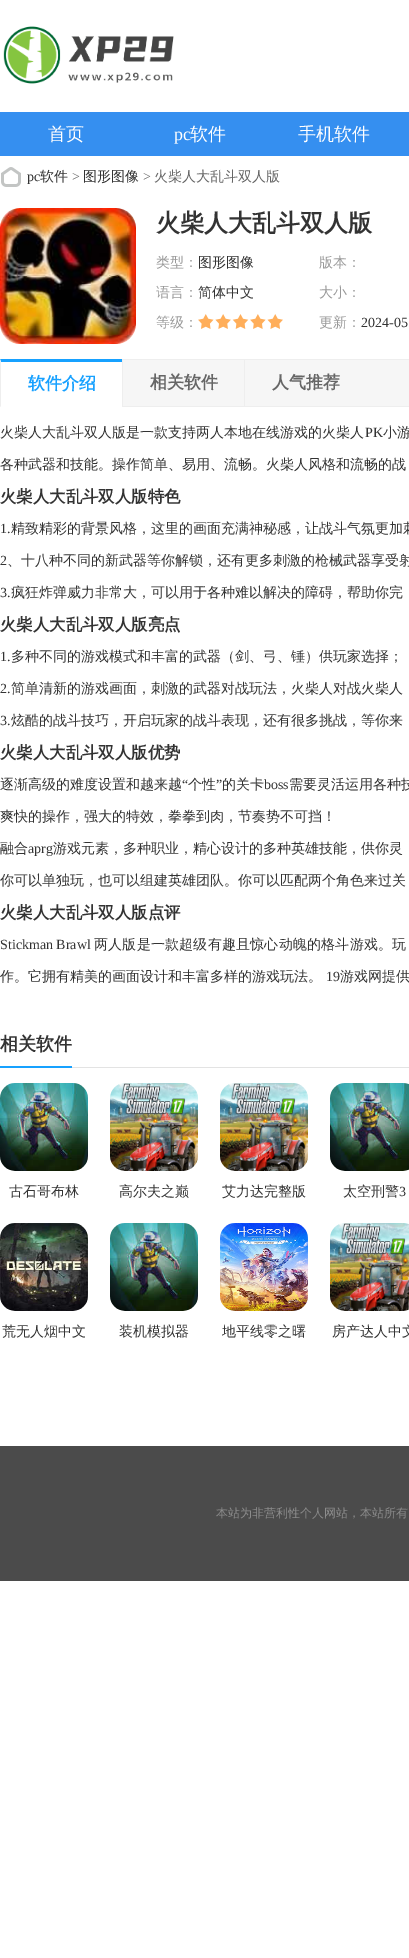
%!PS
<< /PageSize [409 1958] >> setpagedevice
/picture { 5 dict begin { /h /w /y /x /name } { exch def } forall
  gsave x y translate w h scale
  w h 8 [w 0 0 h 0 0] name (r) file false 3 colorimage grestore end } def
0 1958 translate 1 -1 scale
4 setmiterlimit
1 setgray
0 0 409 1958 rectfill
(img1.rgb) 3 26 171 58 picture
0.208 0.561 0.941 setrgbcolor
0 112 409 44 rectfill
/WenQuanYiZenHei-Medium [18 0 0 -18 0 0] selectfont
1 setgray
48 140 moveto (首页) show
/LiberationSerif-Regular [18 0 0 -18 0 0] selectfont
174 140 moveto (pc) show
/WenQuanYiZenHei-Medium [18 0 0 -18 0 0] selectfont
190 140 moveto (软件) show
298 140 moveto (手机软件) show
(img2.rgb) 1 167 20 20 picture
/LiberationSerif-Regular [14 0 0 -14 0 0] selectfont
0.2 setgray
27 181 moveto (pc) show
/WenQuanYiZenHei-Medium [14 0 0 -14 0 0] selectfont
40 181 moveto (软件) show
/LiberationSerif-Regular [14 0 0 -14 0 0] selectfont
0.4 setgray
72 181 moveto (>) show
/WenQuanYiZenHei-Medium [14 0 0 -14 0 0] selectfont
0.2 setgray
83 181 moveto (图形图像) show
/LiberationSerif-Regular [14 0 0 -14 0 0] selectfont
0.4 setgray
143 181 moveto (>) show
/WenQuanYiZenHei-Medium [14 0 0 -14 0 0] selectfont
154 181 moveto (火柴人大乱斗双人版) show
(img3.rgb) 0 208 136 136 picture
/WenQuanYiZenHei-Bold [24 0 0 -24 0 0] selectfont
0.2 setgray
156 231 moveto (火柴人大乱斗双人版) show
/WenQuanYiZenHei-Medium [14 0 0 -14 0 0] selectfont
0.6 setgray
156 267 moveto (类型：) show
0.2 setgray
198 267 moveto (图形图像) show
0.6 setgray
319 267 moveto (版本：) show
156 297 moveto (语言：) show
0.2 setgray
198 297 moveto (简体中文) show
0.6 setgray
319 297 moveto (大小：) show
156 327 moveto (等级：) show
(img4.rgb) 198 314 85 15 picture
319 327 moveto (更新：) show
/LiberationSerif-Regular [14 0 0 -14 0 0] selectfont
0.2 setgray
361 327 moveto (2024-05) show
0.965 setgray
123 360 286 46 rectfill
0.933 setgray
122 359 287 1 rectfill
122 406 287 1 rectfill
0.09 0.631 1 setrgbcolor
newpath 0 359 moveto 122 359 lineto 122 362 lineto 1 362 lineto closepath fill
0.933 setgray
newpath 0 407 moveto 0 359 lineto 1 362 lineto 1 406 lineto closepath fill
/WenQuanYiZenHei-Bold [17 0 0 -17 0 0] selectfont
0.09 0.631 1 setrgbcolor
28 389 moveto (软件介绍) show
0.933 setgray
122 360 1 46 rectfill
0.4 setgray
150 388 moveto (相关软件) show
0.933 setgray
244 360 1 46 rectfill
0.4 setgray
272 388 moveto (人气推荐) show
/WenQuanYiZenHei-Medium [14 0 0 -14 0 0] selectfont
0.2 setgray
0 437 moveto (火柴人大乱斗双人版是一款支持两人本地在线游戏的火柴人) show
/LiberationSerif-Regular [14 0 0 -14 0 0] selectfont
365 437 moveto (PK) show
/WenQuanYiZenHei-Medium [14 0 0 -14 0 0] selectfont
383 437 moveto (小游) show
0 469 moveto (各种武器和技能。操作简单、易用、流畅。火柴人风格和流畅的战) show
/WenQuanYiZenHei-Bold [16.4 0 0 -16.4 0 0] selectfont
0 502 moveto (火柴人大乱斗双人版特色) show
/LiberationSerif-Regular [14 0 0 -14 0 0] selectfont
0 533 moveto (1.) show
/WenQuanYiZenHei-Medium [14 0 0 -14 0 0] selectfont
11 533 moveto (精致精彩的背景风格，这里的画面充满神秘感，让战斗气氛更加刺) show
/LiberationSerif-Regular [14 0 0 -14 0 0] selectfont
0 565 moveto (2) show
/WenQuanYiZenHei-Medium [14 0 0 -14 0 0] selectfont
7 565 moveto (、十八种不同的新武器等你解锁，还有更多刺激的枪械武器享受射) show
/LiberationSerif-Regular [14 0 0 -14 0 0] selectfont
0 597 moveto (3.) show
/WenQuanYiZenHei-Medium [14 0 0 -14 0 0] selectfont
11 597 moveto (疯狂炸弹威力非常大，可以用于各种难以解决的障碍，帮助你完) show
/WenQuanYiZenHei-Bold [16.4 0 0 -16.4 0 0] selectfont
0 630 moveto (火柴人大乱斗双人版亮点) show
/LiberationSerif-Regular [14 0 0 -14 0 0] selectfont
0 661 moveto (1.) show
/WenQuanYiZenHei-Medium [14 0 0 -14 0 0] selectfont
11 661 moveto (多种不同的游戏模式和丰富的武器（剑、弓、锤）供玩家选择；) show
/LiberationSerif-Regular [14 0 0 -14 0 0] selectfont
0 693 moveto (2.) show
/WenQuanYiZenHei-Medium [14 0 0 -14 0 0] selectfont
11 693 moveto (简单清新的游戏画面，刺激的武器对战玩法，火柴人对战火柴人) show
/LiberationSerif-Regular [14 0 0 -14 0 0] selectfont
0 725 moveto (3.) show
/WenQuanYiZenHei-Medium [14 0 0 -14 0 0] selectfont
11 725 moveto (炫酷的战斗技巧，开启玩家的战斗表现，还有很多挑战，等你来) show
/WenQuanYiZenHei-Bold [16.4 0 0 -16.4 0 0] selectfont
0 758 moveto (火柴人大乱斗双人版优势) show
/WenQuanYiZenHei-Medium [14 0 0 -14 0 0] selectfont
0 789 moveto (逐渐高级的难度设置和越来越) show
/LiberationSerif-Regular [14 0 0 -14 0 0] selectfont
182 789 moveto (“) show
/WenQuanYiZenHei-Medium [14 0 0 -14 0 0] selectfont
188 789 moveto (个性) show
/LiberationSerif-Regular [14 0 0 -14 0 0] selectfont
216 789 moveto (”) show
/WenQuanYiZenHei-Medium [14 0 0 -14 0 0] selectfont
222 789 moveto (的关卡) show
/LiberationSerif-Regular [14 0 0 -14 0 0] selectfont
264 789 moveto (boss) show
/WenQuanYiZenHei-Medium [14 0 0 -14 0 0] selectfont
289 789 moveto (需要灵活运用各种技) show
0 821 moveto (爽快的操作，强大的特效，拳拳到肉，节奏势不可挡！) show
0 853 moveto (融合) show
/LiberationSerif-Regular [14 0 0 -14 0 0] selectfont
28 853 moveto (aprg) show
/WenQuanYiZenHei-Medium [14 0 0 -14 0 0] selectfont
53 853 moveto (游戏元素，多种职业，精心设计的多种英雄技能，供你灵) show
0 885 moveto (你可以单独玩，也可以组建英雄团队。你可以匹配两个角色来过关) show
/WenQuanYiZenHei-Bold [16.4 0 0 -16.4 0 0] selectfont
0 918 moveto (火柴人大乱斗双人版点评) show
/LiberationSerif-Regular [14 0 0 -14 0 0] selectfont
0 949 moveto (Stickman Brawl) show
/WenQuanYiZenHei-Medium [14 0 0 -14 0 0] selectfont
94 949 moveto 0.2 0 (两人版是一款超级有趣且惊心动魄的格斗游戏。玩) ashow
0 981 moveto (作。它拥有精美的画面设计和丰富多样的游戏玩法。) show
/LiberationSerif-Regular [14 0 0 -14 0 0] selectfont
326 981 moveto (19) show
/WenQuanYiZenHei-Medium [14 0 0 -14 0 0] selectfont
340 981 moveto (游戏网提供) show
0.89 setgray
72 1067 337 1 rectfill
0.09 0.631 1 setrgbcolor
0 1066 72 2 rectfill
/WenQuanYiZenHei-Bold [18 0 0 -18 0 0] selectfont
0.2 setgray
0 1050 moveto (相关软件) show
(img5.rgb) 0 1083 88 88 picture
/WenQuanYiZenHei-Medium [14 0 0 -14 0 0] selectfont
9 1196 moveto (古石哥布林) show
(img6.rgb) 110 1083 88 88 picture
119 1196 moveto (高尔夫之巅) show
(img7.rgb) 220 1083 88 88 picture
222 1196 moveto (艾力达完整版) show
(img8.rgb) 330 1083 79 88 picture
343 1196 moveto (太空刑警) show
/LiberationSerif-Regular [14 0 0 -14 0 0] selectfont
399 1196 moveto (3) show
(img9.rgb) 0 1223 88 88 picture
/WenQuanYiZenHei-Medium [14 0 0 -14 0 0] selectfont
2 1336 moveto (荒无人烟中文) show
(img10.rgb) 110 1223 88 88 picture
119 1336 moveto (装机模拟器) show
(img11.rgb) 220 1223 88 88 picture
222 1336 moveto (地平线零之曙) show
(img12.rgb) 330 1223 79 88 picture
332 1336 moveto (房产达人中文) show
0.294 setgray
0 1446 409 135 rectfill
/WenQuanYiZenHei-Medium [12 0 0 -12 0 0] selectfont
0.549 setgray
216 1517 moveto (本站为非营利性个人网站，本站所有) show
showpage
